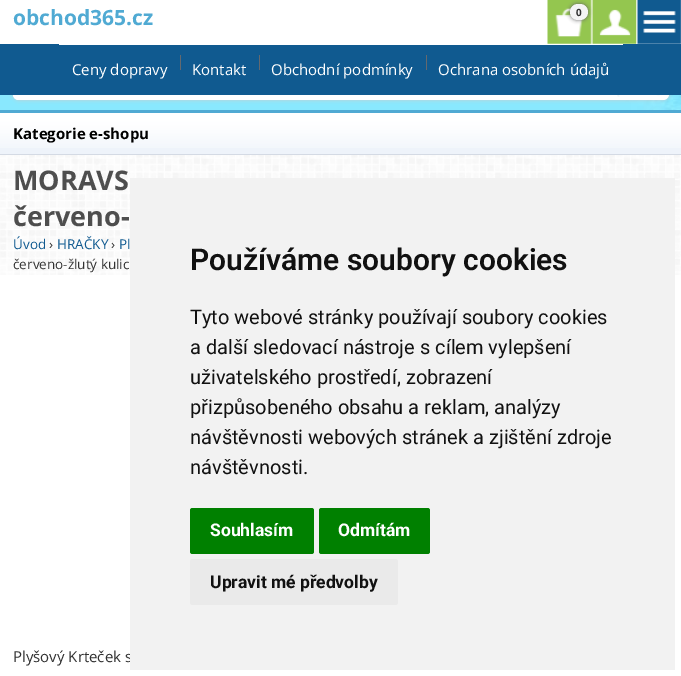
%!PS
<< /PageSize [681 676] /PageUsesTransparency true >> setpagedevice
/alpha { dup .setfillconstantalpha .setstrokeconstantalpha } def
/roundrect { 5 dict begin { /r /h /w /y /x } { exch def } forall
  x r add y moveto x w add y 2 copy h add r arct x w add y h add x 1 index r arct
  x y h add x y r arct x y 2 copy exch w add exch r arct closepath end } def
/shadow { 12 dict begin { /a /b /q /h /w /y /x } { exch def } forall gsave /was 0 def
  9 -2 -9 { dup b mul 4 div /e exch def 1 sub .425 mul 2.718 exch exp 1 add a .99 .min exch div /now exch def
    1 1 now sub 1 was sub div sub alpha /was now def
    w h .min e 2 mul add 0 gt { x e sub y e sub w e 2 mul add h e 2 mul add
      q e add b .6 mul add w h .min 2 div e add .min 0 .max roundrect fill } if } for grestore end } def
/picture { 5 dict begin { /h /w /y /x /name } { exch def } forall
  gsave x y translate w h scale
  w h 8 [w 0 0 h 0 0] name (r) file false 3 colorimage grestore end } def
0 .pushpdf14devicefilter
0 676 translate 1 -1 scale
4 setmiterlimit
1 setgray
0 0 681 676 rectfill
(img1.rgb) 0 155 681 120 picture
(img2.rgb) 0 95 681 15 picture
0.314 0.667 0.827 setrgbcolor
0 110 681 3 rectfill
/OpenSans-Bold [21 0 0 -21 0 0] selectfont
13 25 moveto (obchod365.cz) show
(img3.rgb) 547 0 45 44 picture
(img4.rgb) 592 0 45 44 picture
0.4 setgray
570 4 18 16 8 2 1 shadow
0.957 setgray
570 4 18 16 8 roundrect fill
/OpenSans-Bold [10 0 0 -10 0 0] selectfont
0.192 setgray
576 16 moveto (0) show
(img5.rgb) 637 0 44 44 picture
0.8 setgray
13 59 656 41 6 2 1 shadow
1 setgray
13 59 656 41 6 roundrect fill
newpath 19 59 moveto 538 59 lineto 538 100 lineto 19 100 lineto 15.5 100 13 97.5 13 94 curveto 13 65 lineto 13 61.5 15.5 59 19 59 curveto closepath fill
(img6.rgb) 617 95 43 2 picture
0.063 0.353 0.565 setrgbcolor
0 44 681 51 rectfill
1 setgray
59 44 564 1 rectfill
/OpenSans-Regular [15 0 0 -15 0 0] selectfont
72 75 moveto (Ceny dopravy) show
0.392 0.412 0.435 setrgbcolor
180 55 1 15 rectfill
1 setgray
192 75 moveto (Kontakt) show
0.392 0.412 0.435 setrgbcolor
259 55 1 15 rectfill
1 setgray
271 75 moveto (Obchodní podmínky) show
0.392 0.412 0.435 setrgbcolor
426 55 1 15 rectfill
1 setgray
438 75 moveto (Ochrana osobních údajů) show
0.933 0.953 0.98 setrgbcolor
0 148 681 6 rectfill
(img7.rgb) 0 113 681 35 picture
0.831 0.855 0.894 setrgbcolor
0 154 681 1 rectfill
/OpenSans-Bold [15 0 0 -15 0 0] selectfont
0 setgray
13 139 moveto (Kategorie e-shopu) show
/OpenSans-Bold [27 0 0 -27 0 0] selectfont
0.306 setgray
13 190 moveto (MORAVS) show
13 226 moveto (červeno-) show
/OpenSans-Regular [13.5 0 0 -13.5 0 0] selectfont
0.063 0.353 0.565 setrgbcolor
13 249 moveto (Úvod) show
0.192 setgray
49 249 moveto (›) show
0.063 0.353 0.565 setrgbcolor
57 249 moveto (HRAČKY) show
0.192 setgray
111 249 moveto (›) show
0.063 0.353 0.565 setrgbcolor
119 249 moveto (Pl) show
0.192 setgray
13 269 moveto (červeno-žlutý kulic) show
/OpenSans-Regular [15 0 0 -15 0 0] selectfont
13 662 moveto (Plyšový Krteček s) show
0.949 setgray
130 178 545 492 rectfill
/Roboto-SemiBold [30 0 0 -30 0 0] selectfont
0.067 setgray
190 270 moveto (Používáme soubory cookies) show
/Roboto-Regular [20 0 0 -20 0 0] selectfont
190 324 moveto (Tyto webové stránky používají soubory cookies) show
190 354 moveto (a další sledovací nástroje s cílem vylepšení) show
190 384 moveto (uživatelského prostředí, zobrazení) show
190 414 moveto (přizpůsobeného obsahu a reklam, analýzy) show
190 444 moveto (návštěvnosti webových stránek a zjištění zdroje) show
190 474 moveto (návštěvnosti.) show
0 0.502 0 setrgbcolor
190 508 124 46 2.5 roundrect fill
/Roboto-Bold [17.5 0 0 -17.5 0 0] selectfont
1 setgray
210 536 moveto (Souhlasím) show
0 0.502 0 setrgbcolor
319 508 111 46 2.5 roundrect fill
1 setgray
338 536 moveto (Odmítám) show
0.918 setgray
190 559 208 46 2.5 roundrect fill
0.067 setgray
210 588 moveto (Upravit mé předvolby) show
.poppdf14devicefilter showpage
